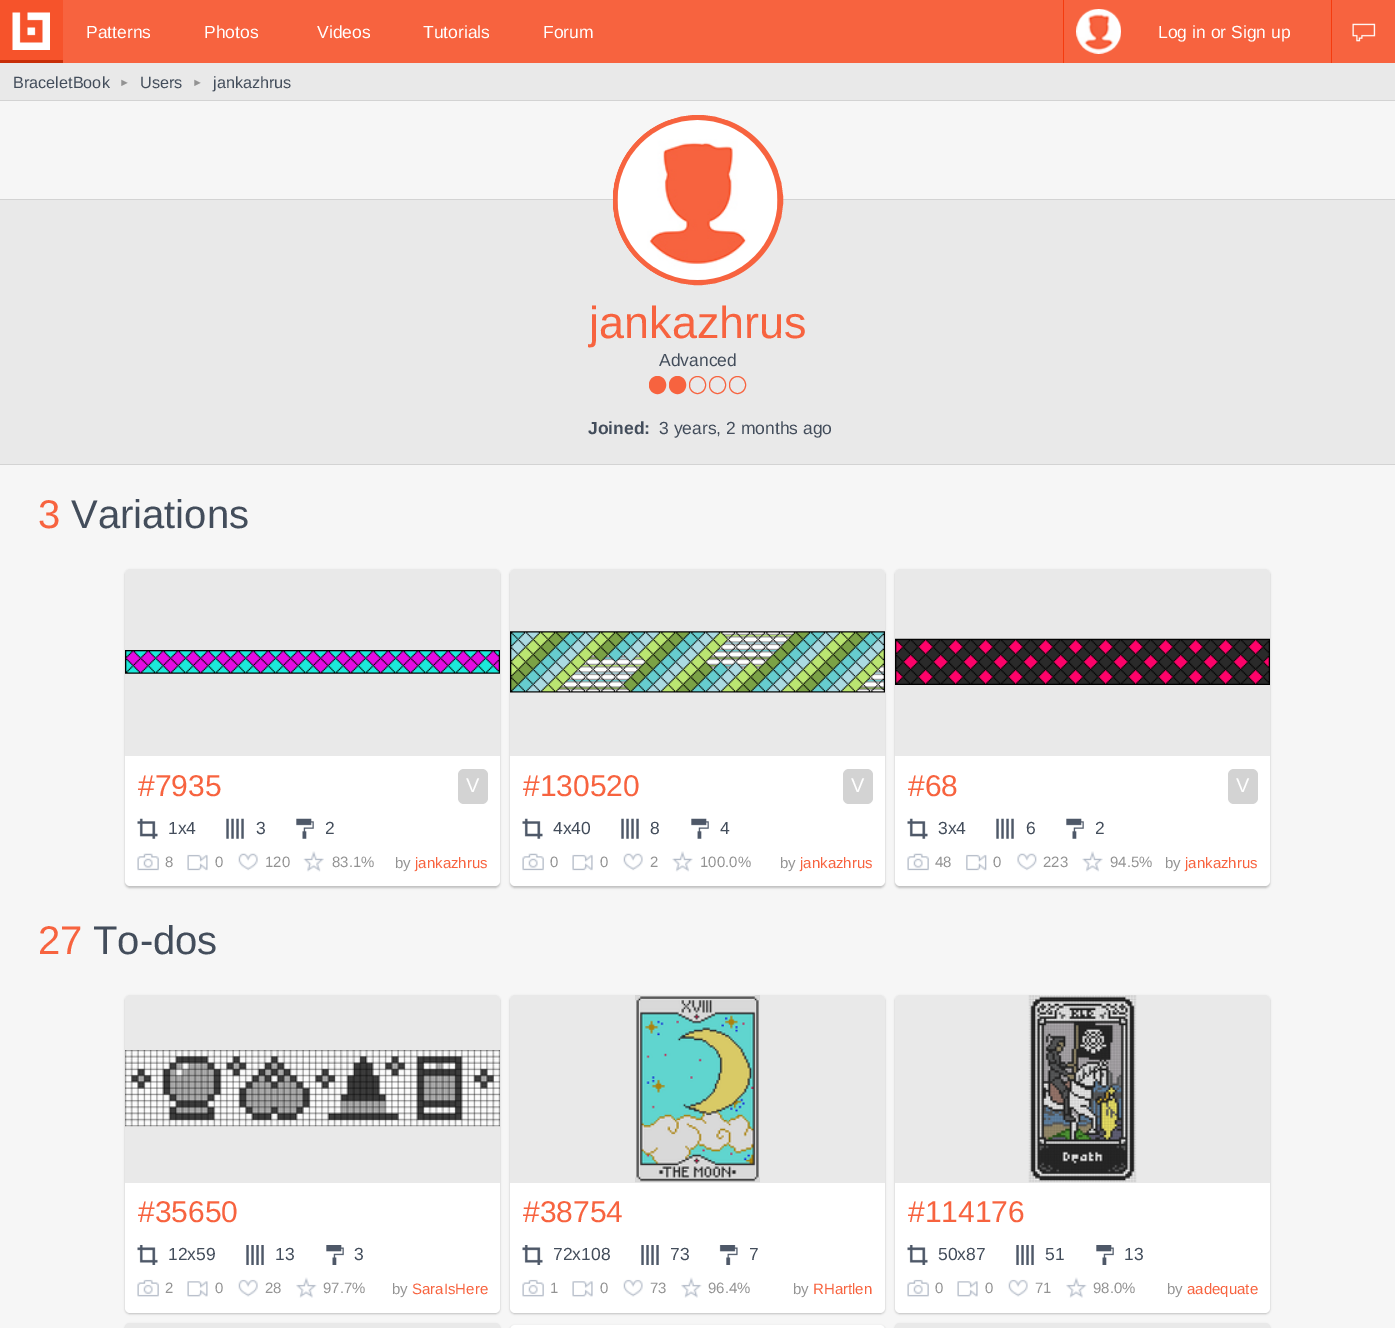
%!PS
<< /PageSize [1395 1328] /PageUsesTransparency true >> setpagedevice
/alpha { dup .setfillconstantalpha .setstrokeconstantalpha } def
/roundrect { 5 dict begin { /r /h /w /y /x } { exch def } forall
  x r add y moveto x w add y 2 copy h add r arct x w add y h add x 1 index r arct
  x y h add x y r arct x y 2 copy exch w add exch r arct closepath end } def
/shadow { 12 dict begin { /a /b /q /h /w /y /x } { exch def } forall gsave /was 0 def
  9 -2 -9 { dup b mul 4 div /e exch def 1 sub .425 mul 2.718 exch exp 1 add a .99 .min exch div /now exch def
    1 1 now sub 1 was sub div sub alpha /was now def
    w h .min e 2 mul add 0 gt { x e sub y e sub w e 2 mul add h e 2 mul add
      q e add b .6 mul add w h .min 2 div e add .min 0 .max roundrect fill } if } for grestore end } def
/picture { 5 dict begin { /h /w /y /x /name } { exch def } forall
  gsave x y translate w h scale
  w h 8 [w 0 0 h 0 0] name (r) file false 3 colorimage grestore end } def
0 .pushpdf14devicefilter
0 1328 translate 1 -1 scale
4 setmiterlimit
0.965 setgray
0 0 1395 1328 rectfill
0.969 0.388 0.247 setrgbcolor
63 0 1332 63 rectfill
0.965 0.325 0.169 setrgbcolor
0 0 63 60 rectfill
0.784 0.18 0.031 setrgbcolor
0 60 63 3 rectfill
(img1.rgb) 12 12 38 38 picture
/LiberationSans-Regular [17.5 0 0 -17.5 0 0] selectfont
1 setgray
86 38 moveto (Patterns) show
204 38 moveto (Photos) show
317 38 moveto (Videos) show
423 38 moveto (Tutorials) show
543 38 moveto (Forum) show
0.961 0.231 0.055 setrgbcolor
1331 0 1 63 rectfill
1063 0 1 63 rectfill
(img2.rgb) 1076 9 45 45 picture
1 setgray
1158 38 moveto (Log in or Sign up) show
(img3.rgb) 1352 23 24 19 picture
0.914 setgray
0 63 1395 37 rectfill
0.827 setgray
0 100 1395 1 rectfill
/LiberationSans-Regular [16.25 0 0 -16.25 0 0] selectfont
0.263 0.302 0.357 setrgbcolor
13 88 moveto (BraceletBook) show
/LiberationSans-Regular [11 0 0 -11 0 0] selectfont
0.576 setgray
119 86 moveto (►) show
/LiberationSans-Regular [16.25 0 0 -16.25 0 0] selectfont
0.263 0.302 0.357 setrgbcolor
140 88 moveto (Users) show
/LiberationSans-Regular [11 0 0 -11 0 0] selectfont
0.576 setgray
192 86 moveto (►) show
/LiberationSans-Regular [16.25 0 0 -16.25 0 0] selectfont
0.263 0.302 0.357 setrgbcolor
213 88 moveto (jankazhrus) show
0.914 setgray
0 200 1395 264 rectfill
0.827 setgray
0 199 1395 1 rectfill
0 464 1395 1 rectfill
(img4.rgb) 612 115 171 170 picture
0.969 0.388 0.247 setrgbcolor
5 setlinewidth
newpath 698 200 82.5 0 360 arc closepath stroke
(img5.rgb) 617 120 161 160 picture
/LiberationSans-Regular [45 0 0 -45 0 0] selectfont
589 338 moveto (jankazhrus) show
/LiberationSans-Regular [17.5 0 0 -17.5 0 0] selectfont
0.263 0.302 0.357 setrgbcolor
659 366 moveto (Advanced) show
0.969 0.388 0.247 setrgbcolor
649.5 376.5 16 17 8 roundrect gsave fill grestore
1 setlinewidth
stroke
669.5 376.5 16 17 8 roundrect gsave fill grestore
stroke
689.5 376.5 16 17 8 roundrect stroke
709.5 376.5 16 17 8 roundrect stroke
729.5 376.5 16 17 8 roundrect stroke
/LiberationSans-Bold [17.5 0 0 -17.5 0 0] selectfont
0.263 0.302 0.357 setrgbcolor
588 434 moveto (Joined:) show
/LiberationSans-Regular [17.5 0 0 -17.5 0 0] selectfont
659 434 moveto (3 years, 2 months ago) show
/LiberationSans-Regular [40 0 0 -40 0 0] selectfont
0.969 0.388 0.247 setrgbcolor
38 528 moveto (3) show
0.263 0.302 0.357 setrgbcolor
71 528 moveto (Variations) show
0 setgray
125 570 375 318 5 1 0.22 shadow
1 setgray
125 569 375 317 5 roundrect fill
0.914 setgray
newpath 130 569 moveto 495 569 lineto 498 569 500 571 500 574 curveto 500 756 lineto 125 756 lineto 125 574 lineto 125 571 127 569 130 569 curveto closepath fill
(img6.rgb) 125 650 375 24 picture
/LiberationSans-Regular [30 0 0 -30 0 0] selectfont
0.969 0.388 0.247 setrgbcolor
138 796 moveto (#7935) show
0.827 setgray
458 769 30 35 6 roundrect fill
/LiberationSans-Regular [20 0 0 -20 0 0] selectfont
1 setgray
466 792 moveto (V) show
(img7.rgb) 137 818 21 21 picture
/LiberationSans-Regular [17.5 0 0 -17.5 0 0] selectfont
0.263 0.302 0.357 setrgbcolor
168 834 moveto (1x4) show
(img8.rgb) 226 818 18 21 picture
256 834 moveto (3) show
(img9.rgb) 296 818 18 21 picture
325 834 moveto (2) show
(img10.rgb) 137 853 22 18 picture
/LiberationSans-Regular [15 0 0 -15 0 0] selectfont
0.576 setgray
165 867 moveto (8) show
(img11.rgb) 187 854 21 17 picture
215 867 moveto (0) show
(img12.rgb) 238 853 20 18 picture
265 867 moveto (120) show
(img13.rgb) 303 851 21 21 picture
332 867 moveto (83.1%) show
395 868 moveto (by) show
0.969 0.388 0.247 setrgbcolor
415 868 moveto (jankazhrus) show
0 setgray
510 570 375 318 5 1 0.22 shadow
1 setgray
510 569 375 317 5 roundrect fill
0.914 setgray
newpath 515 569 moveto 880 569 lineto 883 569 885 571 885 574 curveto 885 756 lineto 510 756 lineto 510 574 lineto 510 571 512 569 515 569 curveto closepath fill
(img14.rgb) 510 631 375 62 picture
/LiberationSans-Regular [30 0 0 -30 0 0] selectfont
0.969 0.388 0.247 setrgbcolor
523 796 moveto (#130520) show
0.827 setgray
843 769 30 35 6 roundrect fill
/LiberationSans-Regular [20 0 0 -20 0 0] selectfont
1 setgray
851 792 moveto (V) show
(img7.rgb) 522 818 21 21 picture
/LiberationSans-Regular [17.5 0 0 -17.5 0 0] selectfont
0.263 0.302 0.357 setrgbcolor
553 834 moveto (4x40) show
(img8.rgb) 621 818 18 21 picture
650 834 moveto (8) show
(img15.rgb) 691 818 18 21 picture
720 834 moveto (4) show
(img10.rgb) 522 853 22 18 picture
/LiberationSans-Regular [15 0 0 -15 0 0] selectfont
0.576 setgray
550 867 moveto (0) show
(img16.rgb) 572 854 21 17 picture
600 867 moveto (0) show
(img17.rgb) 623 853 20 18 picture
650 867 moveto (2) show
(img18.rgb) 672 851 21 21 picture
700 867 moveto (100.0%) show
780 868 moveto (by) show
0.969 0.388 0.247 setrgbcolor
800 868 moveto (jankazhrus) show
0 setgray
895 570 375 318 5 1 0.22 shadow
1 setgray
895 569 375 317 5 roundrect fill
0.914 setgray
newpath 900 569 moveto 1265 569 lineto 1268 569 1270 571 1270 574 curveto 1270 756 lineto 895 756 lineto 895 574 lineto 895 571 897 569 900 569 curveto closepath fill
(img19.rgb) 895 638 375 47 picture
/LiberationSans-Regular [30 0 0 -30 0 0] selectfont
0.969 0.388 0.247 setrgbcolor
908 796 moveto (#68) show
0.827 setgray
1228 769 30 35 6 roundrect fill
/LiberationSans-Regular [20 0 0 -20 0 0] selectfont
1 setgray
1236 792 moveto (V) show
(img7.rgb) 907 818 21 21 picture
/LiberationSans-Regular [17.5 0 0 -17.5 0 0] selectfont
0.263 0.302 0.357 setrgbcolor
938 834 moveto (3x4) show
(img8.rgb) 996 818 18 21 picture
1026 834 moveto (6) show
(img9.rgb) 1066 818 18 21 picture
1095 834 moveto (2) show
(img10.rgb) 907 853 22 18 picture
/LiberationSans-Regular [15 0 0 -15 0 0] selectfont
0.576 setgray
935 867 moveto (48) show
(img20.rgb) 966 854 21 17 picture
993 867 moveto (0) show
(img21.rgb) 1017 853 20 18 picture
1043 867 moveto (223) show
(img22.rgb) 1082 851 21 21 picture
1110 867 moveto (94.5%) show
1165 868 moveto (by) show
0.969 0.388 0.247 setrgbcolor
1185 868 moveto (jankazhrus) show
/LiberationSans-Regular [40 0 0 -40 0 0] selectfont
38 954 moveto (27) show
0.263 0.302 0.357 setrgbcolor
93 954 moveto (To-dos) show
0 setgray
125 996 375 318 5 1 0.22 shadow
1 setgray
125 995 375 318 5 roundrect fill
0.914 setgray
newpath 130 995 moveto 495 995 lineto 498 995 500 997 500 1000 curveto 500 1183 lineto 125 1183 lineto 125 1000 lineto 125 997 127 995 130 995 curveto closepath fill
(img23.rgb) 125 1050 375 77 picture
/LiberationSans-Regular [30 0 0 -30 0 0] selectfont
0.969 0.388 0.247 setrgbcolor
138 1222 moveto (#35650) show
(img24.rgb) 137 1245 21 20 picture
/LiberationSans-Regular [17.5 0 0 -17.5 0 0] selectfont
0.263 0.302 0.357 setrgbcolor
168 1260 moveto (12x59) show
(img25.rgb) 246 1245 18 20 picture
275 1260 moveto (13) show
(img26.rgb) 326 1245 18 20 picture
354 1260 moveto (3) show
(img27.rgb) 137 1279 22 18 picture
/LiberationSans-Regular [15 0 0 -15 0 0] selectfont
0.576 setgray
165 1293 moveto (2) show
(img28.rgb) 187 1281 21 16 picture
215 1293 moveto (0) show
(img29.rgb) 238 1279 20 18 picture
265 1293 moveto (28) show
(img30.rgb) 296 1277 21 21 picture
323 1293 moveto (97.7%) show
392 1294 moveto (by) show
0.969 0.388 0.247 setrgbcolor
412 1294 moveto (SaraIsHere) show
0 setgray
510 996 375 318 5 1 0.22 shadow
1 setgray
510 995 375 318 5 roundrect fill
0.914 setgray
newpath 515 995 moveto 880 995 lineto 883 995 885 997 885 1000 curveto 885 1183 lineto 510 1183 lineto 510 1000 lineto 510 997 512 995 515 995 curveto closepath fill
(img31.rgb) 635 995 125 188 picture
/LiberationSans-Regular [30 0 0 -30 0 0] selectfont
0.969 0.388 0.247 setrgbcolor
523 1222 moveto (#38754) show
(img24.rgb) 522 1245 21 20 picture
/LiberationSans-Regular [17.5 0 0 -17.5 0 0] selectfont
0.263 0.302 0.357 setrgbcolor
553 1260 moveto (72x108) show
(img25.rgb) 641 1245 18 20 picture
670 1260 moveto (73) show
(img32.rgb) 719 1245 19 20 picture
749 1260 moveto (7) show
(img27.rgb) 522 1279 22 18 picture
/LiberationSans-Regular [15 0 0 -15 0 0] selectfont
0.576 setgray
550 1293 moveto (1) show
(img33.rgb) 572 1281 21 16 picture
600 1293 moveto (0) show
(img34.rgb) 623 1279 20 18 picture
650 1293 moveto (73) show
(img30.rgb) 681 1277 21 21 picture
708 1293 moveto (96.4%) show
793 1294 moveto (by) show
0.969 0.388 0.247 setrgbcolor
813 1294 moveto (RHartlen) show
0 setgray
895 996 375 318 5 1 0.22 shadow
1 setgray
895 995 375 318 5 roundrect fill
0.914 setgray
newpath 900 995 moveto 1265 995 lineto 1268 995 1270 997 1270 1000 curveto 1270 1183 lineto 895 1183 lineto 895 1000 lineto 895 997 897 995 900 995 curveto closepath fill
(img35.rgb) 1028 995 109 188 picture
/LiberationSans-Regular [30 0 0 -30 0 0] selectfont
0.969 0.388 0.247 setrgbcolor
908 1222 moveto (#114176) show
(img24.rgb) 907 1245 21 20 picture
/LiberationSans-Regular [17.5 0 0 -17.5 0 0] selectfont
0.263 0.302 0.357 setrgbcolor
938 1260 moveto (50x87) show
(img25.rgb) 1016 1245 18 20 picture
1045 1260 moveto (51) show
(img26.rgb) 1096 1245 18 20 picture
1124 1260 moveto (13) show
(img27.rgb) 907 1279 22 18 picture
/LiberationSans-Regular [15 0 0 -15 0 0] selectfont
0.576 setgray
935 1293 moveto (0) show
(img33.rgb) 957 1281 21 16 picture
985 1293 moveto (0) show
(img36.rgb) 1008 1279 20 18 picture
1035 1293 moveto (71) show
(img30.rgb) 1066 1277 21 21 picture
1093 1293 moveto (98.0%) show
1167 1294 moveto (by) show
0.969 0.388 0.247 setrgbcolor
1187 1294 moveto (aadequate) show
0 setgray
125 1324 375 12 5 1 0.22 shadow
0.914 setgray
newpath 130 1323 moveto 495 1323 lineto 498 1323 500 1325 500 1328 curveto 500 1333 lineto 125 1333 lineto 125 1328 lineto 125 1325 127 1323 130 1323 curveto closepath fill
0 setgray
510 1326 375 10 5 1 0.22 shadow
1 setgray
510 1325 375 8 5 roundrect fill
0 setgray
895 1324 375 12 5 1 0.22 shadow
0.914 setgray
newpath 900 1323 moveto 1265 1323 lineto 1268 1323 1270 1325 1270 1328 curveto 1270 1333 lineto 895 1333 lineto 895 1328 lineto 895 1325 897 1323 900 1323 curveto closepath fill
.poppdf14devicefilter showpage
